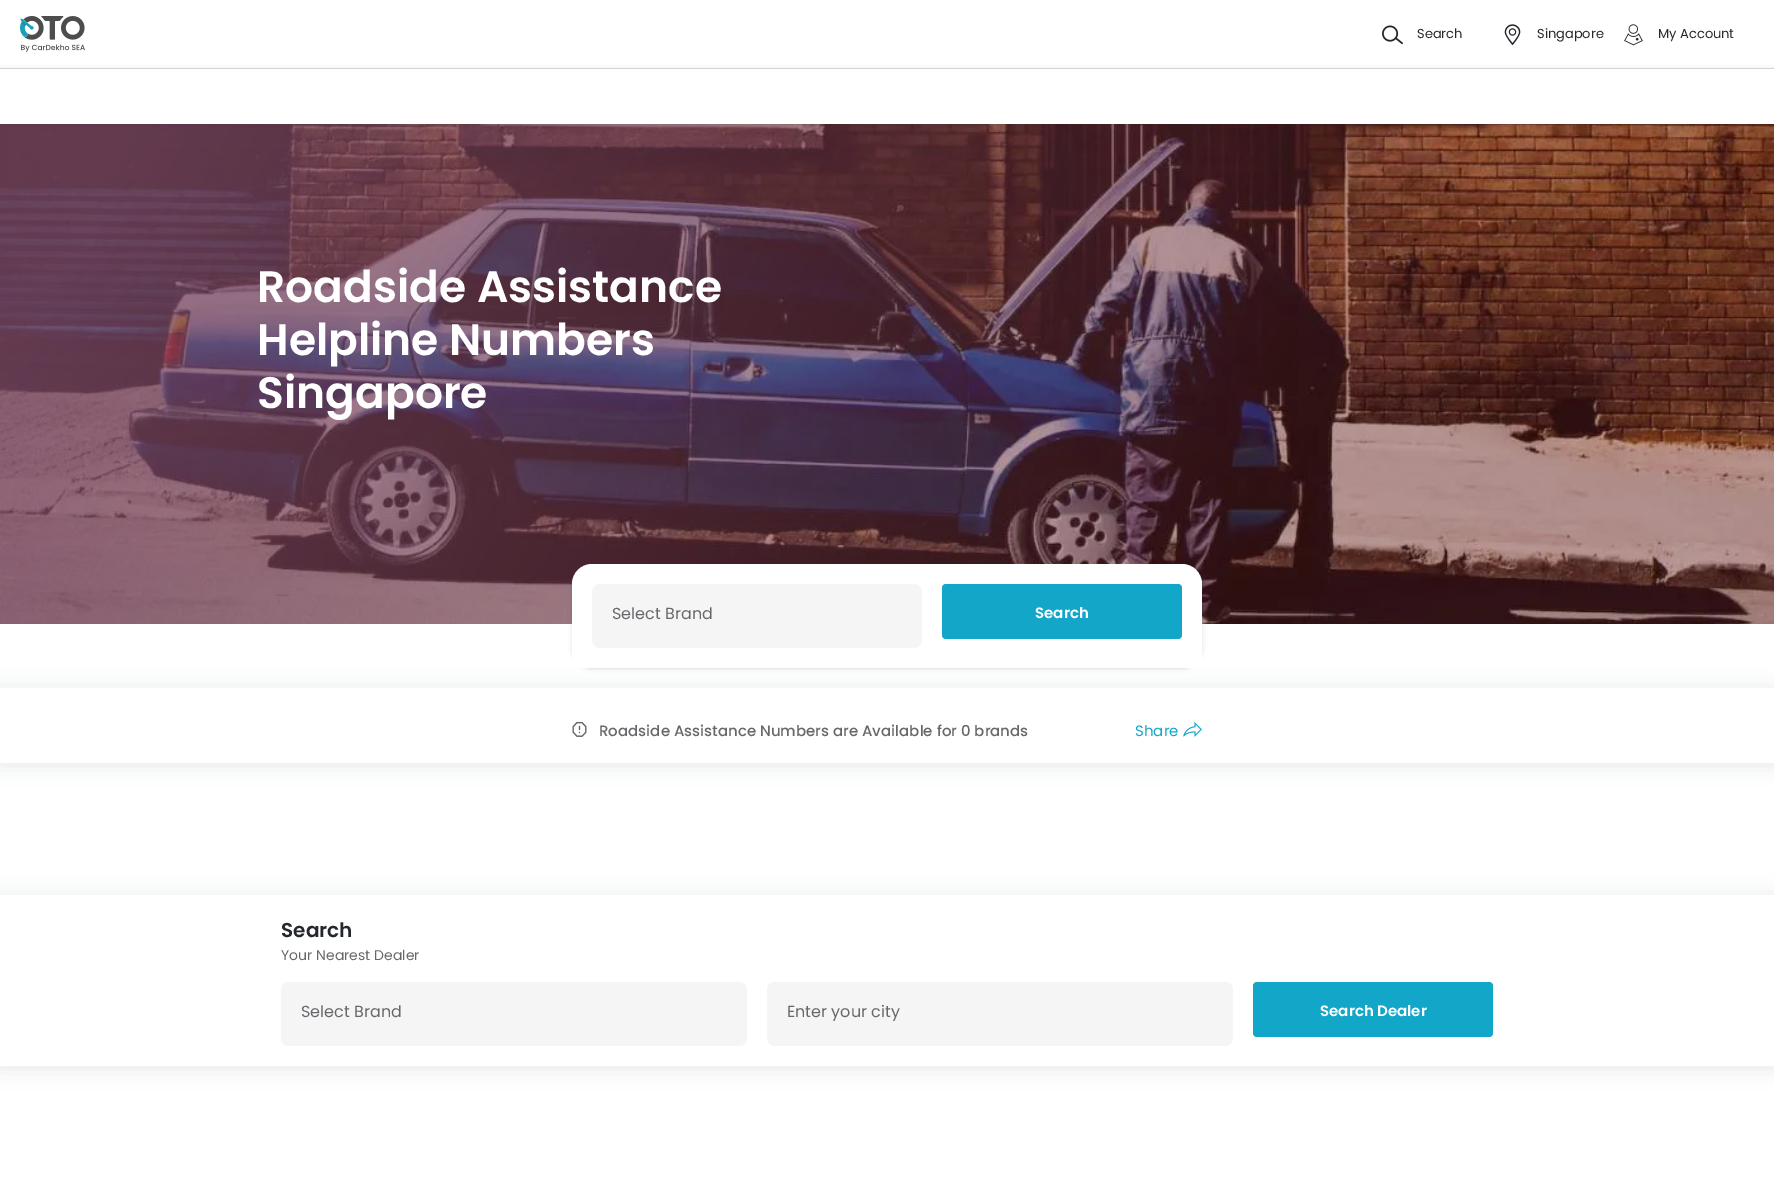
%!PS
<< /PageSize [1774 1195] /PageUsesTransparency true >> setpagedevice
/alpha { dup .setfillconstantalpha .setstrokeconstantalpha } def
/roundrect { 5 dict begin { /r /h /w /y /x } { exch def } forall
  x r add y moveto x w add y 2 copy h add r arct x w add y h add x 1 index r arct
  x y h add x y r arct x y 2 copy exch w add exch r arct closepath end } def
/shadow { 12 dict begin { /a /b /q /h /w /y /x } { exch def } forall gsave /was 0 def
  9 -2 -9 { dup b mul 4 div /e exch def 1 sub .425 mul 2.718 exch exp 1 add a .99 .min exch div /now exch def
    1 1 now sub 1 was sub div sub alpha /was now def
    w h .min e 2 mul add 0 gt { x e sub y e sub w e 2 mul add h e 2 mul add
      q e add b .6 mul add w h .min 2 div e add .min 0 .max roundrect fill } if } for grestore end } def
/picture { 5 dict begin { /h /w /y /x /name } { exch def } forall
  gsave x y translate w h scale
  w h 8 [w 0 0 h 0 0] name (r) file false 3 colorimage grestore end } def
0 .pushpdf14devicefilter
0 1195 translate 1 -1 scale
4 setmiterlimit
1 setgray
0 0 1774 1195 rectfill
(img1.rgb) 20 16 65 37 picture
(img2.rgb) 1382 25 21 20 picture
/Poppins-Regular [13 0 0 -13 0 0] selectfont
0.141 0.153 0.173 setrgbcolor
1417 38 moveto (Search) show
(img3.rgb) 1504 24 17 21 picture
1537 38 moveto (Singapore) show
(img4.rgb) 1624 24 19 22 picture
1658 38 moveto (My Account) show
(img5.rgb) 0 124 1774 500 picture
gsave
newpath 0 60 moveto 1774 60 lineto 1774 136 lineto 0 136 lineto closepath 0 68 moveto 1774 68 lineto 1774 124 lineto 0 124 lineto closepath eoclip newpath
0 70 1774 56 0 3 0.15 shadow
grestore
0.827 0.831 0.835 setrgbcolor
0 68 1774 1 rectfill
/Poppins-SemiBold [44 0 0 -44 0 0] selectfont
1 setgray
257 302 moveto (Roadside Assistance) show
257 355 moveto (Helpline Numbers) show
257 408 moveto (Singapore) show
0.157 0.2 0.247 setrgbcolor
572 565 630 104 20 2 0.16 shadow
gsave
newpath 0 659 moveto 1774 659 lineto 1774 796 lineto 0 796 lineto closepath 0 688 moveto 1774 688 lineto 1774 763 lineto 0 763 lineto closepath eoclip newpath
0 690 1774 75 0 10 0.12 shadow
grestore
1 setgray
newpath 592 564 moveto 1182 564 lineto 1193 564 1202 573 1202 584 curveto 1202 668 lineto 572 668 lineto 572 584 lineto 572 573 581 564 592 564 curveto closepath fill
0.961 0.961 0.965 setrgbcolor
592 584 330 64 8 roundrect fill
/Poppins-Regular [16 0 0 -16 0 0] selectfont
0.4 0.408 0.42 setrgbcolor
612 619 moveto (Select Brand) show
0.071 0.655 0.784 setrgbcolor
942 584 240 55 4 roundrect fill
/Poppins-SemiBold [15 0 0 -15 0 0] selectfont
1 setgray
1035 618 moveto (Search) show
(img6.rgb) 572 721 15 16 picture
/Poppins-Medium [15 0 0 -15 0 0] selectfont
0.4 0.408 0.42 setrgbcolor
599 736 moveto (Roadside Assistance Numbers are Available for 0 brands) show
/Poppins-Regular [15 0 0 -15 0 0] selectfont
0.071 0.655 0.784 setrgbcolor
1135 736 moveto (Share) show
(img7.rgb) 1183 722 19 15 picture
gsave
newpath 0 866 moveto 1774 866 lineto 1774 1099 lineto 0 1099 lineto closepath 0 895 moveto 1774 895 lineto 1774 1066 lineto 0 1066 lineto closepath eoclip newpath
0.157 0.2 0.247 setrgbcolor
0 897 1774 171 0 10 0.12 shadow
grestore
/Poppins-SemiBold [20 0 0 -20 0 0] selectfont
0.141 0.153 0.173 setrgbcolor
281 937 moveto (Search) show
/Poppins-Regular [14 0 0 -14 0 0] selectfont
0.4 0.408 0.42 setrgbcolor
281 960 moveto (Your Nearest Dealer) show
0.961 0.961 0.965 setrgbcolor
281 982 466 64 8 roundrect fill
/Poppins-Regular [16 0 0 -16 0 0] selectfont
0.4 0.408 0.42 setrgbcolor
301 1017 moveto (Select Brand) show
0.961 0.961 0.965 setrgbcolor
767 982 466 64 8 roundrect fill
0.4 0.408 0.42 setrgbcolor
787 1017 moveto (Enter your city) show
0.071 0.655 0.784 setrgbcolor
1253 982 240 55 4 roundrect fill
/Poppins-SemiBold [15 0 0 -15 0 0] selectfont
1 setgray
1320 1016 moveto (Search Dealer) show
.poppdf14devicefilter showpage
